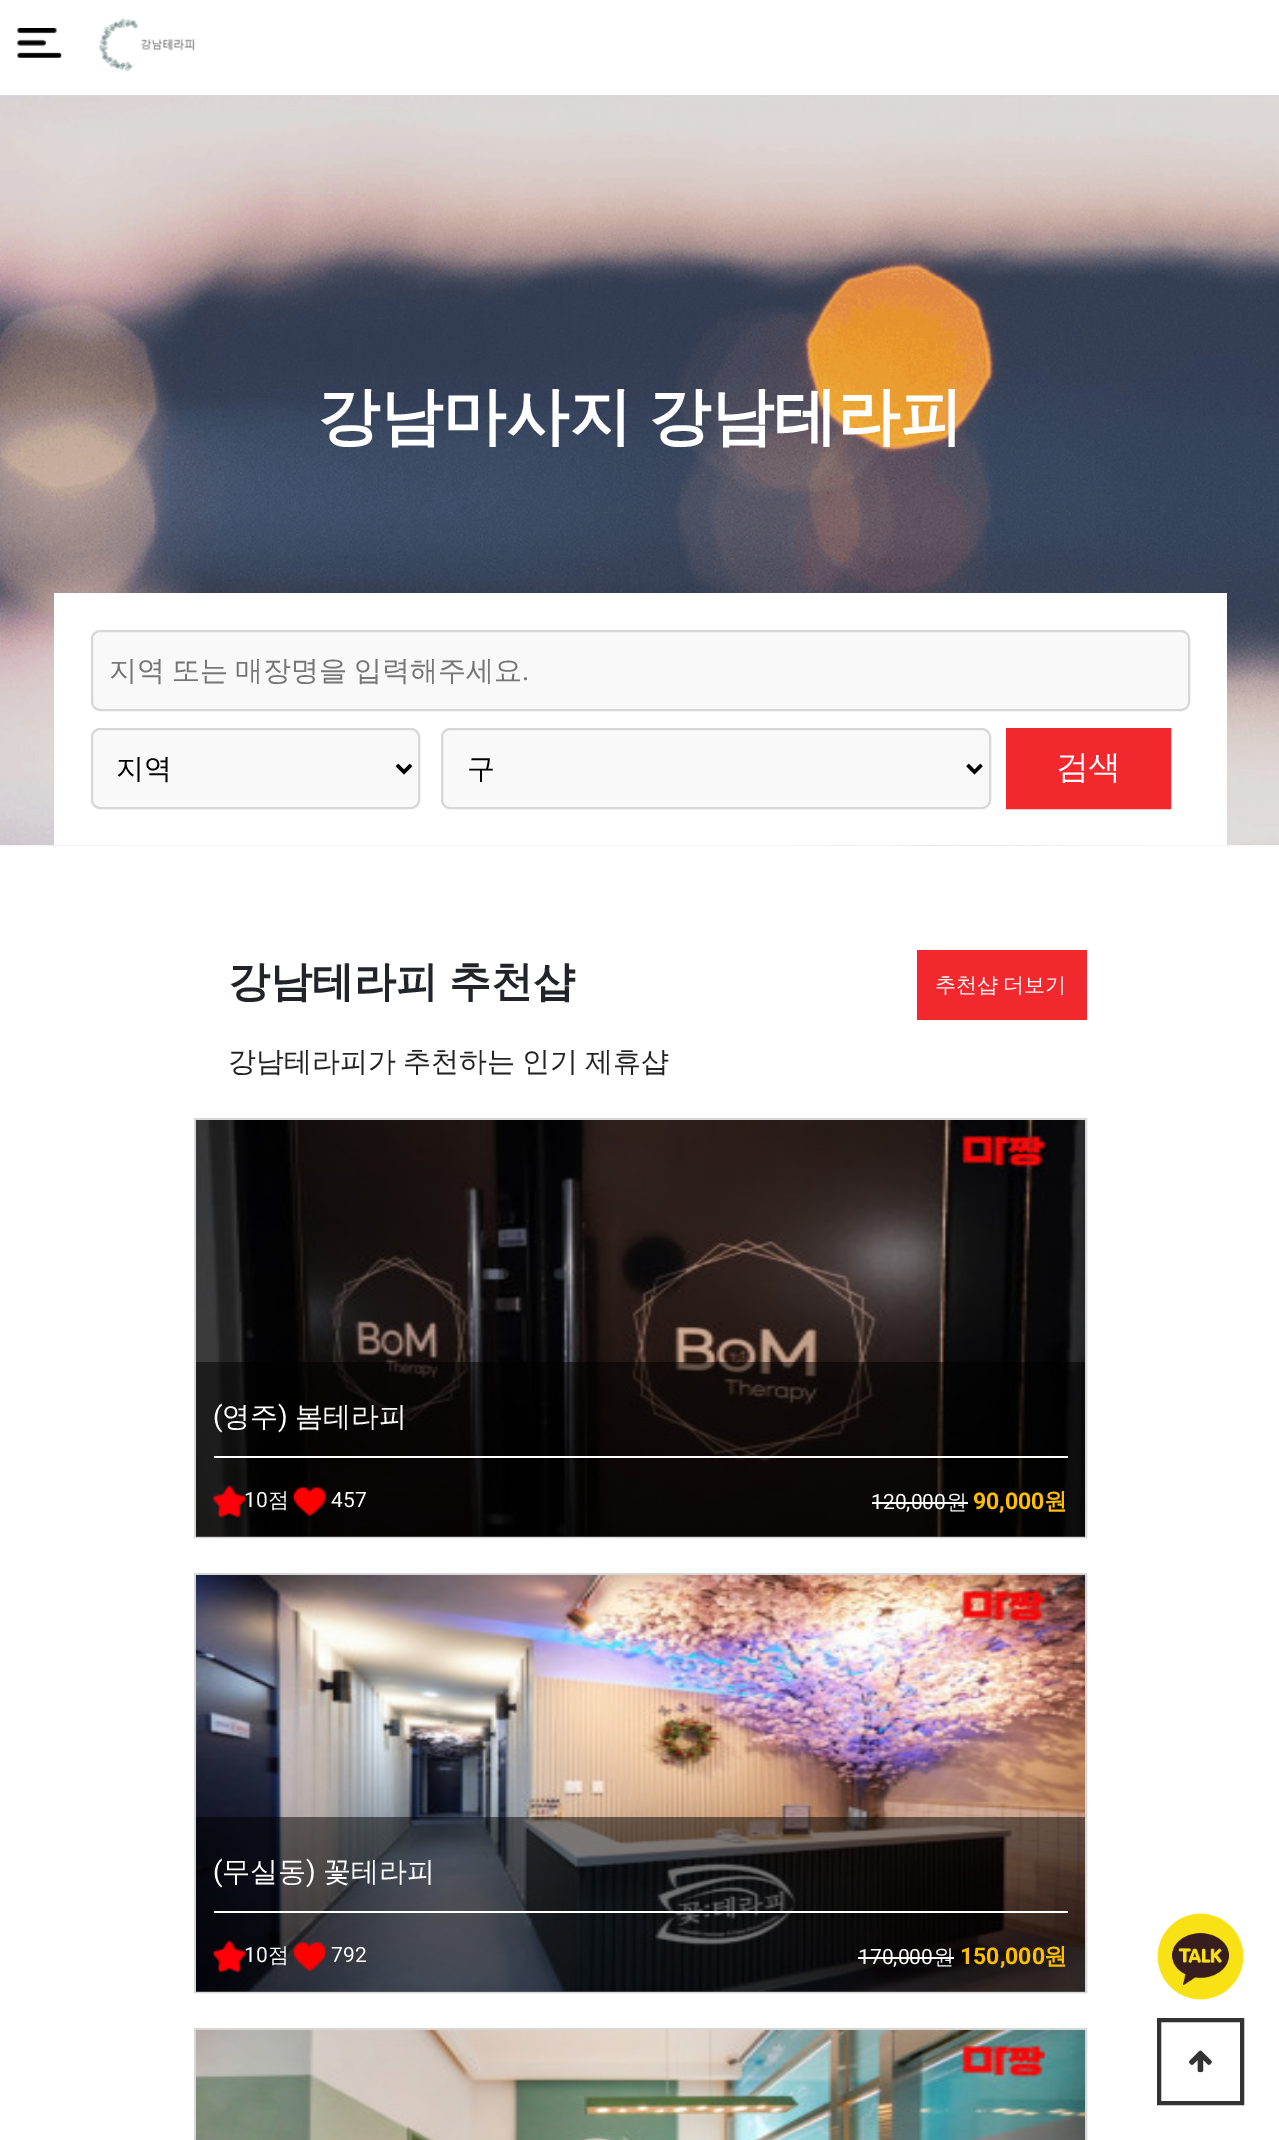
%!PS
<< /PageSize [1279 2140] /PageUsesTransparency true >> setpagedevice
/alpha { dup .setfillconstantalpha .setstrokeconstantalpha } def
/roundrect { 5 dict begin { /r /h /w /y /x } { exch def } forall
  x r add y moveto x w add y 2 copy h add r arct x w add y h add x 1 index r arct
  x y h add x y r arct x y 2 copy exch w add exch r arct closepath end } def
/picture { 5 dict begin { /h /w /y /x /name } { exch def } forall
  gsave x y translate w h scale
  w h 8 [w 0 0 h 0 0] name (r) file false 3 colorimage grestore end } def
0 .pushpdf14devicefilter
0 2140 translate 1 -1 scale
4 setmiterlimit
1 setgray
0 0 1279 2140 rectfill
0.843 setgray
0 95 1279 2 rectfill
(img1.rgb) 17 28 45 30 picture
(img2.rgb) 98 18 97 54 picture
(img3.rgb) 0 96 1279 750 picture
/WenQuanYiZenHei-Bold [63 0 0 -63 0 0] selectfont
1 setgray
317 438 moveto -3 0 32 (강남마사지 강남테라피) widthshow
54 593 1173 252 rectfill
0.976 setgray
92 631 1097 79 8 roundrect gsave fill grestore
0.843 setgray
2 setlinewidth
stroke
/WenQuanYiZenHei-Medium [28 0 0 -28 0 0] selectfont
0.459 setgray
109 680 moveto -1.5 0 32 (지역 또는 매장명을 입력해주세요) widthshow
/Roboto-Regular [28 0 0 -28 0 0] selectfont
522 680 moveto (.) show
0.976 setgray
92 729 327 79 8 roundrect gsave fill grestore
0.843 setgray
stroke
0 setgray
3.5 setlinewidth
newpath 397 765 moveto 404 772 lineto 411 765 lineto stroke
/WenQuanYiZenHei-Medium [28 0 0 -28 0 0] selectfont
116 778 moveto (지역) show
0.976 setgray
442 729 548 79 8 roundrect gsave fill grestore
0.843 setgray
2 setlinewidth
stroke
0 setgray
3.5 setlinewidth
newpath 967.5 765 moveto 974.5 772 lineto 981.5 765 lineto stroke
467 778 moveto (구) show
0.953 0.157 0.184 setrgbcolor
newpath 1007 729 moveto 1170 729 lineto 1170 808 lineto 1007 808 lineto closepath gsave fill grestore
2 setlinewidth
stroke
/WenQuanYiZenHei-Medium [33 0 0 -33 0 0] selectfont
1 setgray
1056 778 moveto -1 0 (검색) ashow
/WenQuanYiZenHei-Bold [42 0 0 -42 0 0] selectfont
0.129 0.145 0.161 setrgbcolor
228 996 moveto -2 0 32 (강남테라피 추천샵) widthshow
0.953 0.157 0.184 setrgbcolor
917 950 170 70 rectfill
/WenQuanYiZenHei-Medium [21 0 0 -21 0 0] selectfont
1 setgray
935 992 moveto -1 0 32 (추천샵 더보기) widthshow
/WenQuanYiZenHei-Medium [28 0 0 -28 0 0] selectfont
0.133 setgray
228 1071 moveto -1.5 0 32 (강남테라피가 추천하는) widthshow
522 1071 moveto -1.5 0 32 (인기 제휴샵) widthshow
0.843 setgray
195 1119 891 418 rectstroke
(img4.rgb) 196 1120 889 417 picture
0.5 alpha
0 setgray
196 1362 889 175 rectfill
1 alpha
1 setgray
214 1456 854 2 rectfill
/Roboto-Regular [28 0 0 -28 0 0] selectfont
213 1426 moveto (\() show
/WenQuanYiZenHei-Medium [28 0 0 -28 0 0] selectfont
222 1426 moveto (영주) show
/Roboto-Regular [28 0 0 -28 0 0] selectfont
278 1426 moveto (\)) show
/WenQuanYiZenHei-Medium [28 0 0 -28 0 0] selectfont
295 1426 moveto (봄테라피) show
(img5.rgb) 213 1485 32 33 picture
/Roboto-Regular [21 0 0 -21 0 0] selectfont
244 1507 moveto (10) show
/WenQuanYiZenHei-Medium [21 0 0 -21 0 0] selectfont
268 1507 moveto (점) show
(img6.rgb) 294 1487 32 29 picture
/Roboto-Regular [21 0 0 -21 0 0] selectfont
331 1507 moveto (457) show
871 1509 moveto (120,000) show
872 1502 96 2 rectfill
/WenQuanYiZenHei-Medium [21 0 0 -21 0 0] selectfont
946 1509 moveto (원) show
/Roboto-Bold [23 0 0 -23 0 0] selectfont
1 0.749 0 setrgbcolor
973 1509 moveto (90,000) show
/WenQuanYiZenHei-Bold [23 0 0 -23 0 0] selectfont
1044 1509 moveto (원) show
0.843 setgray
195 1574 891 418 rectstroke
(img7.rgb) 196 1575 889 417 picture
0.5 alpha
0 setgray
196 1817 889 175 rectfill
1 alpha
1 setgray
214 1911 854 2 rectfill
/Roboto-Regular [28 0 0 -28 0 0] selectfont
213 1881 moveto (\() show
/WenQuanYiZenHei-Medium [28 0 0 -28 0 0] selectfont
222 1881 moveto (무실동) show
/Roboto-Regular [28 0 0 -28 0 0] selectfont
306 1881 moveto (\)) show
/WenQuanYiZenHei-Medium [28 0 0 -28 0 0] selectfont
323 1881 moveto (꽃테라피) show
(img8.rgb) 213 1940 32 33 picture
/Roboto-Regular [21 0 0 -21 0 0] selectfont
244 1962 moveto (10) show
/WenQuanYiZenHei-Medium [21 0 0 -21 0 0] selectfont
268 1962 moveto (점) show
(img9.rgb) 294 1942 32 29 picture
/Roboto-Regular [21 0 0 -21 0 0] selectfont
331 1962 moveto (792) show
858 1964 moveto (170,000) show
858 1957 96 2 rectfill
/WenQuanYiZenHei-Medium [21 0 0 -21 0 0] selectfont
933 1964 moveto (원) show
/Roboto-Bold [23 0 0 -23 0 0] selectfont
1 0.749 0 setrgbcolor
960 1964 moveto (150,000) show
/WenQuanYiZenHei-Bold [23 0 0 -23 0 0] selectfont
1044 1964 moveto (원) show
0.843 setgray
195 2029 891 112 rectstroke
(img10.rgb) 196 2030 889 110 picture
(img11.rgb) 1157 1913 87 87 picture
0.2 setgray
4 setlinewidth
1159 2020 83 83 rectstroke
(img12.rgb) 1189 2050 23 23 picture
.poppdf14devicefilter showpage
